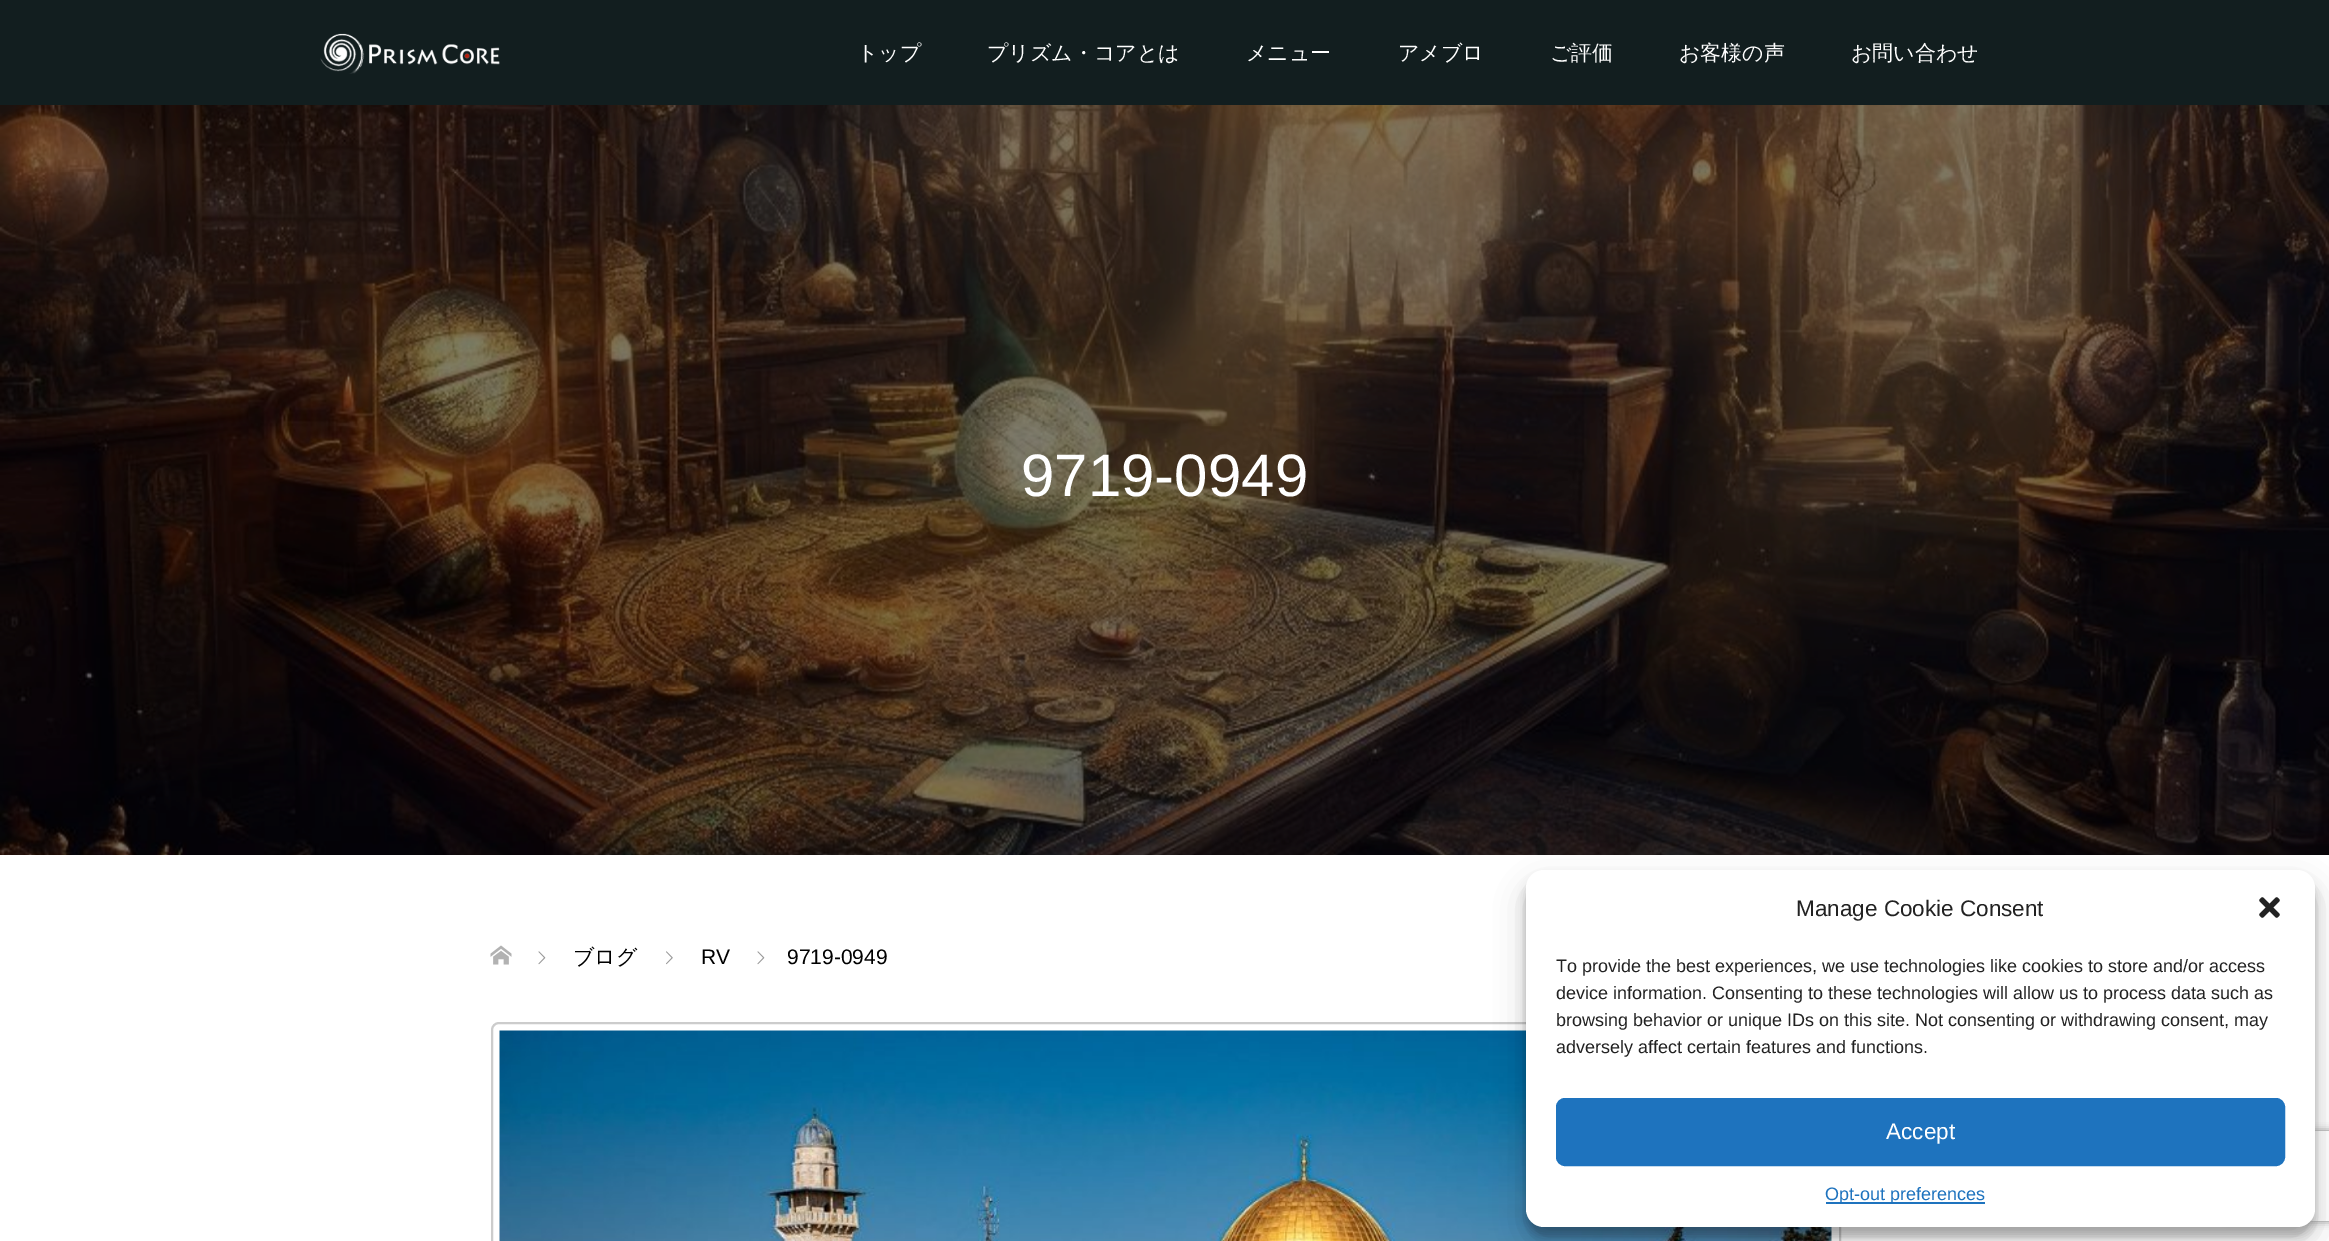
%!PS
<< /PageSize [2329 1241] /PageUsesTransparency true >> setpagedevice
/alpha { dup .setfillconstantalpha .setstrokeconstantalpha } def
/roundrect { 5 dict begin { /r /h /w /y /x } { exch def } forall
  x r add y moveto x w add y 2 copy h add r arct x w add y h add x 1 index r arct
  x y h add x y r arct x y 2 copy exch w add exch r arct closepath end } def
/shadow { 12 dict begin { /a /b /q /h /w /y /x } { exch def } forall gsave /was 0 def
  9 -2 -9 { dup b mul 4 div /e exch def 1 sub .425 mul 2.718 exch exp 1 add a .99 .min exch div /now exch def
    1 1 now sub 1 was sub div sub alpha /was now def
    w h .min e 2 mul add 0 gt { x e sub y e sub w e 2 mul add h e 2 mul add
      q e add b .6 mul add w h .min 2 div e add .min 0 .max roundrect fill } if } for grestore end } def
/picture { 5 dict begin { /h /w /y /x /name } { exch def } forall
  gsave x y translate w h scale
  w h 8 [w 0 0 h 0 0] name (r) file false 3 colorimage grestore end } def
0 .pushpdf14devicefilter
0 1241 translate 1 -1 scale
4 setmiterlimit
1 setgray
0 0 2329 1241 rectfill
0.071 0.118 0.122 setrgbcolor
0 0 2329 105 rectfill
(img1.rgb) 320 33 180 41 picture
/WenQuanYiZenHei-Medium [21 0 0 -21 0 0] selectfont
1 setgray
857 60 moveto (トップ) show
987 60 moveto (プリズム・コアとは) show
1246 60 moveto (メニュー) show
1398 60 moveto (アメブロ) show
1550 60 moveto (ご評価) show
1679 60 moveto (お客様の声) show
1851 60 moveto (お問い合わせ) show
(img2.rgb) 0 105 2329 750 picture
/LiberationSans-Regular [60 0 0 -60 0 0] selectfont
1021 496 moveto (9719-0949) show
(img3.rgb) 490 945 22 20 picture
(img4.rgb) 538 951 8 14 picture
/WenQuanYiZenHei-Medium [21 0 0 -21 0 0] selectfont
0 setgray
573 964 moveto (ブログ) show
(img5.rgb) 666 951 7 14 picture
/LiberationSans-Regular [21 0 0 -21 0 0] selectfont
701 964 moveto (RV) show
(img4.rgb) 757 951 8 14 picture
787 964 moveto (9719-0949) show
0.8 setgray
2 setlinewidth
492 1023 1348 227 7 roundrect stroke
(img6.rgb) 499 1030 1333 211 picture
0 setgray
1526 879 789 357 18 4.5 0.23 shadow
1526 885 789 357 18 15 0.19 shadow
gsave
newpath 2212 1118 moveto 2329 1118 lineto 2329 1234 lineto 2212 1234 lineto closepath 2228 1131 moveto 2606 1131 lineto 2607.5 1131 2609 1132.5 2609 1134 curveto 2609 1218 lineto 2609 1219.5 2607.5 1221 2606 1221 curveto 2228 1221 lineto 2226.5 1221 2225 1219.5 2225 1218 curveto 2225 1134 lineto 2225 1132.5 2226.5 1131 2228 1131 curveto closepath eoclip newpath
0.502 setgray
2225 1131 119 90 3 4 1 shadow
grestore
1 setgray
1526 870 789 357 18 roundrect fill
/LiberationSans-Regular [22.5 0 0 -22.5 0 0] selectfont
0.133 setgray
1796 916 moveto (Manage Cookie Consent) show
(img7.rgb) 2259 897 21 21 picture
/LiberationSans-Regular [18 0 0 -18 0 0] selectfont
1556 972 moveto (To provide the best experiences, we use technologies like cookies to store and/or access) show
1556 999 moveto (device information. Consenting to these technologies will allow us to process data such as) show
1556 1026 moveto (browsing behavior or unique IDs on this site. Not consenting or withdrawing consent, may) show
1556 1053 moveto (adversely affect certain features and functions.) show
0.118 0.451 0.745 setrgbcolor
1557 1099 727 66 8 roundrect gsave fill grestore
stroke
/LiberationSans-Regular [22.5 0 0 -22.5 0 0] selectfont
1 setgray
1886 1139 moveto (Accept) show
0.118 0.451 0.745 setrgbcolor
1826 1202 159 2 rectfill
/LiberationSans-Regular [18 0 0 -18 0 0] selectfont
1825 1200 moveto (Opt-out preferences) show
.poppdf14devicefilter showpage
